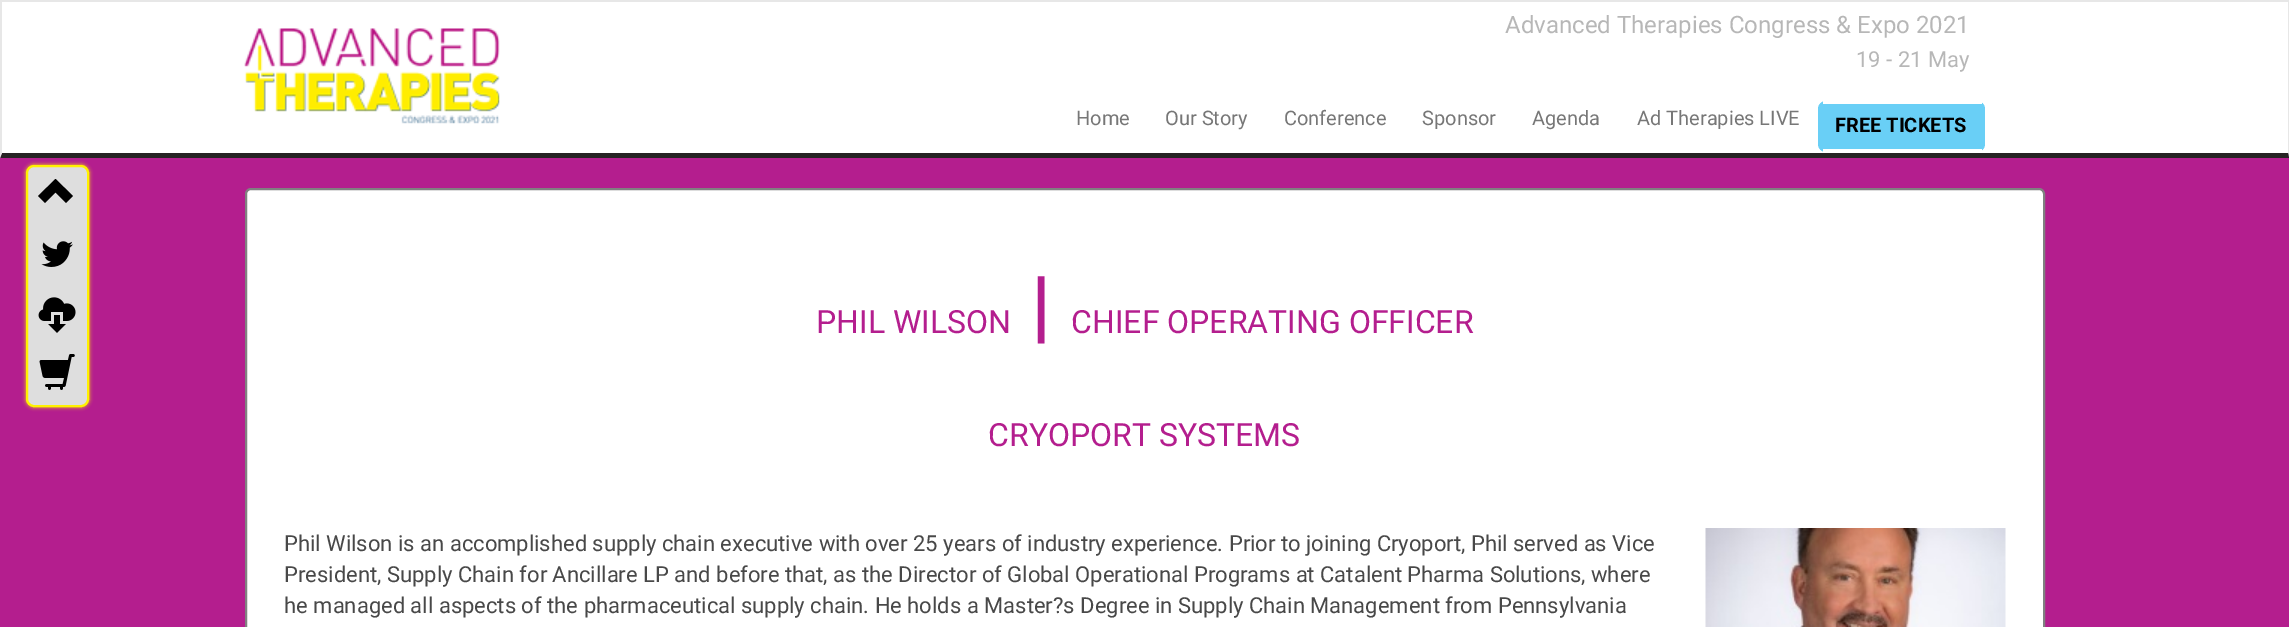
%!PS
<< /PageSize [2289 627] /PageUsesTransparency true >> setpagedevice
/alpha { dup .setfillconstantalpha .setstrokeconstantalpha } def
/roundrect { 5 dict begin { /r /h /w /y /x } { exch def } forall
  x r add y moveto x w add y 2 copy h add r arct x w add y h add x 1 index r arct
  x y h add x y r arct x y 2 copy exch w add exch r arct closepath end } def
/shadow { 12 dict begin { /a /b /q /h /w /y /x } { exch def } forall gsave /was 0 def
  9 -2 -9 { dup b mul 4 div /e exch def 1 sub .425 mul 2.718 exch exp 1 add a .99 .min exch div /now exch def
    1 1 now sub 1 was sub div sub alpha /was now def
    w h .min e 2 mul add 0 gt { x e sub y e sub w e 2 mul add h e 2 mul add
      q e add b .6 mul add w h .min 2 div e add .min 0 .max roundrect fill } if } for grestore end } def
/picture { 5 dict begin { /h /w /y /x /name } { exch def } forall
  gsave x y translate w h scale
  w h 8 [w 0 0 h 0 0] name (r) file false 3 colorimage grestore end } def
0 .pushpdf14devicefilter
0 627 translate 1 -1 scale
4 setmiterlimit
0.706 0.118 0.557 setrgbcolor
0 0 2289 627 rectfill
1 setgray
2 2 2286 151 rectfill
0.906 setgray
0 0 2289 2 rectfill
newpath 2289 0 moveto 2289 158 lineto 2288 153 lineto 2288 2 lineto closepath fill
0.149 0.137 0.137 setrgbcolor
newpath 2289 158 moveto 0 158 lineto 2 153 lineto 2288 153 lineto closepath fill
0.906 setgray
newpath 0 158 moveto 0 0 lineto 2 2 lineto 2 153 lineto closepath fill
(img1.rgb) 244 28 256 96 picture
/Roboto-Regular [24 0 0 -24 0 0] selectfont
0.718 setgray
1505 33 moveto (Advanced Therapies Congress & Expo 2021) show
/Roboto-Regular [22 0 0 -22 0 0] selectfont
1856 67 moveto (19 - 21 May) show
/Roboto-Regular [20 0 0 -20 0 0] selectfont
0.467 setgray
1076 125 moveto (Home) show
1165 125 moveto (Our Story) show
1284 125 moveto (Conference) show
1422 125 moveto (Sponsor) show
1532 125 moveto (Agenda) show
1637 125 moveto (Ad Therapies LIVE) show
0.412 0.812 0.965 setrgbcolor
1818 101 167 51 8 roundrect fill
1 setgray
1823 101 159 3 rectfill
1823 149 159 3 rectfill
/Roboto-Bold [20 0 0 -20 0 0] selectfont
0 setgray
1835 132 moveto (FREE TICKETS) show
1 0.949 0 setrgbcolor
26 165 63 242 8 2 1 shadow
0.871 setgray
27 166 61 240 7 roundrect gsave fill grestore
1 0.949 0 setrgbcolor
2 setlinewidth
stroke
0 setgray
newpath 38 196 moveto 45 203 lineto 55.5 192.5 lineto 66 203 lineto 73 196 lineto 55.5 179 lineto closepath fill
(img2.rgb) 41 241 32 26 picture
(img3.rgb) 38 297 38 36 picture
(img4.rgb) 39 354 36 36 picture
1 setgray
246 189 1798 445 5 roundrect gsave fill grestore
0.502 setgray
stroke
/Roboto-Regular [32 0 0 -32 0 0] selectfont
0.706 0.118 0.557 setrgbcolor
816 333 moveto (PHIL WILSON) show
/Roboto-Bold [80 0 0 -80 0 0] selectfont
1031 333 moveto (|) show
/Roboto-Regular [32 0 0 -32 0 0] selectfont
1071 333 moveto (CHIEF OPERATING OFFICER) show
988 446 moveto (CRYOPORT SYSTEMS) show
/Roboto-Regular [22 0 0 -22 0 0] selectfont
0.282 setgray
284 551 moveto (Phil Wilson is an accomplished supply chain executive with over 25 years of industry experience. Prior to joining Cryoport, Phil served as Vice) show
284 582 moveto (President, Supply Chain for Ancillare LP and before that, as the Director of Global Operational Programs at Catalent Pharma Solutions, where) show
284 613 moveto (he managed all aspects of the pharmaceutical supply chain. He holds a Master?s Degree in Supply Chain Management from Pennsylvania) show
(img5.rgb) 1705 528 301 99 picture
.poppdf14devicefilter showpage
